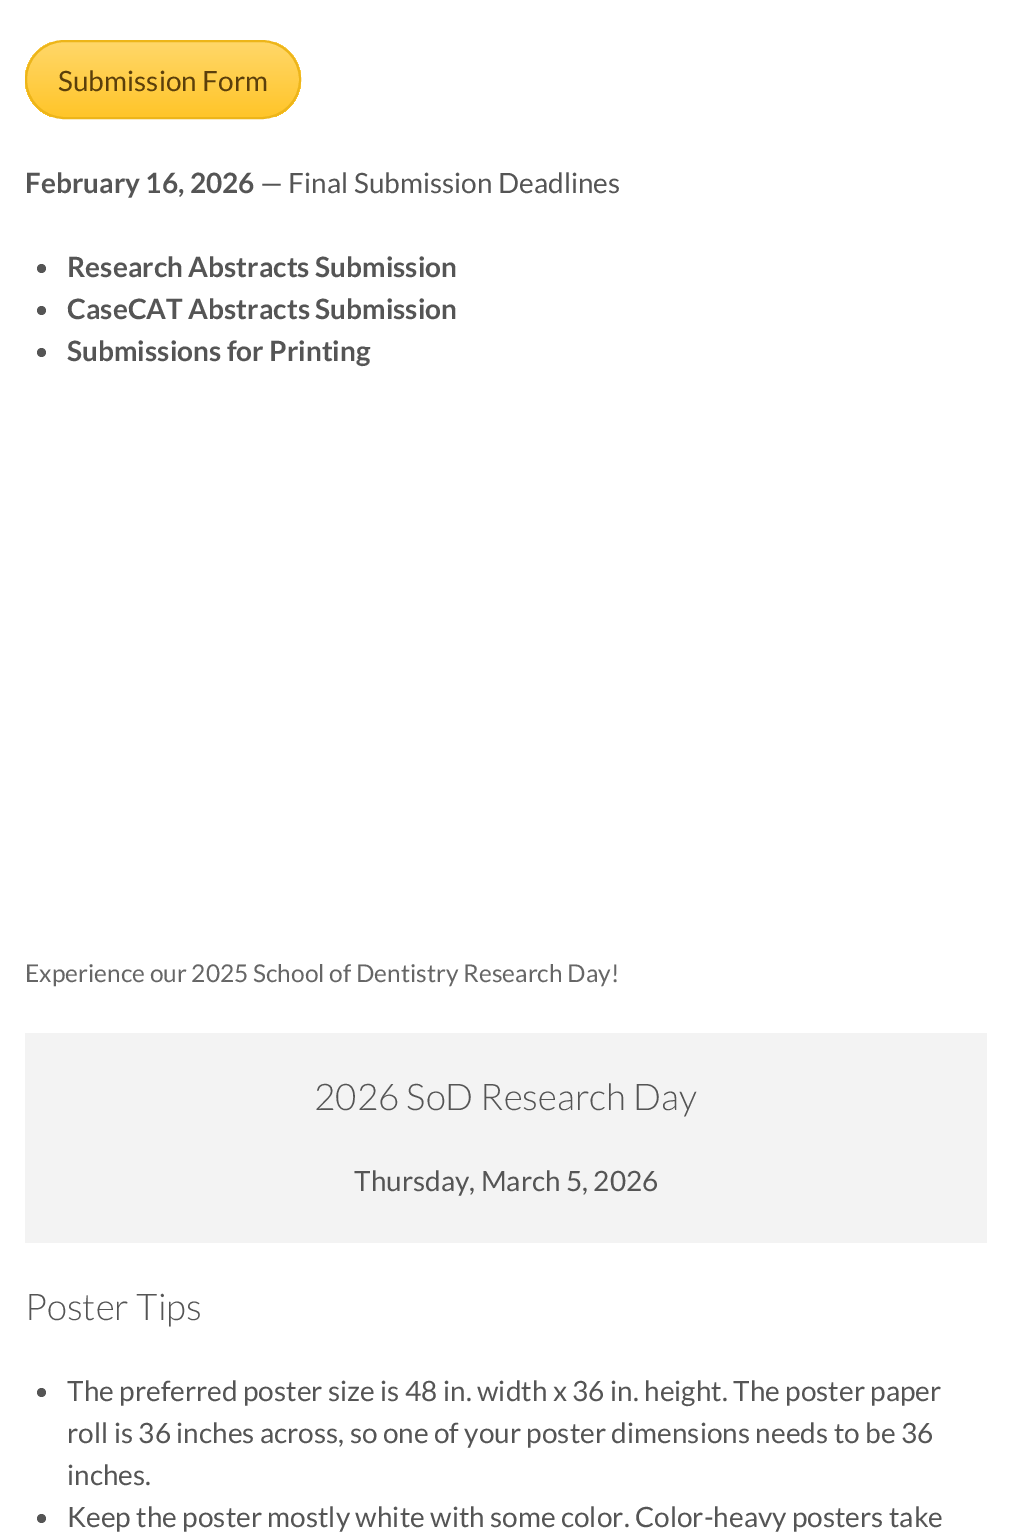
%!PS
<< /PageSize [1010 1540] >> setpagedevice
/roundrect { 5 dict begin { /r /h /w /y /x } { exch def } forall
  x r add y moveto x w add y 2 copy h add r arct x w add y h add x 1 index r arct
  x y h add x y r arct x y 2 copy exch w add exch r arct closepath end } def
0 1540 translate 1 -1 scale
4 setmiterlimit
1 setgray
0 0 1010 1540 rectfill
gsave
25 40 276 79 39.5 roundrect clip newpath
gsave newpath 25 42 moveto 301 42 lineto 301 117 lineto 25 117 lineto closepath clip newpath
<< /ShadingType 2 /ColorSpace /DeviceRGB /Coords [163 42 163 117] /Extend [true true] /Function << /FunctionType 2 /Domain [0 1] /C0 [1 0.843 0.412] /C1 [1 0.773 0.161] /N 1 >> >> shfill grestore
grestore
0.929 0.71 0.098 setrgbcolor
2 setlinewidth
26 41 274 77 38.5 roundrect stroke
/Lato-Regular [28 0 0 -28 0 0] selectfont
0.357 0.247 0.043 setrgbcolor
58 91 moveto (Submission Form) show
/Lato-Bold [28 0 0 -28 0 0] selectfont
0.333 setgray
25 193 moveto (February 16, 2026) show
/Lato-Regular [28 0 0 -28 0 0] selectfont
260 193 moveto (— Final Submission Deadlines) show
newpath 41.5 268.5 4.5 0 360 arc closepath fill
/Lato-Bold [28 0 0 -28 0 0] selectfont
67 277 moveto (Research Abstracts Submission) show
newpath 41.5 310.5 4.5 0 360 arc closepath fill
67 319 moveto (CaseCAT Abstracts Submission) show
newpath 41.5 352.5 4.5 0 360 arc closepath fill
67 361 moveto (Submissions for Printing) show
/Lato-Regular [24.5 0 0 -24.5 0 0] selectfont
0.4 setgray
25 982 moveto (Experience our 2025 School of Dentistry Research Day!) show
0.953 setgray
25 1033 962 210 rectfill
/Lato-Light [36.75 0 0 -36.75 0 0] selectfont
0.333 setgray
314 1110 moveto (2026 SoD Research Day) show
/Lato-Regular [28 0 0 -28 0 0] selectfont
354 1191 moveto (Thursday, March 5, 2026) show
/Lato-Light [36.75 0 0 -36.75 0 0] selectfont
25 1320 moveto (Poster Tips) show
newpath 41.5 1392.5 4.5 0 360 arc closepath fill
/Lato-Regular [28 0 0 -28 0 0] selectfont
67 1401 moveto (The preferred poster size is 48 in. width x 36 in. height. The poster paper) show
67 1443 moveto (roll is 36 inches across, so one of your poster dimensions needs to be 36) show
67 1485 moveto (inches.) show
newpath 41.5 1518.5 4.5 0 360 arc closepath fill
67 1527 moveto (Keep the poster mostly white with some color. Color-heavy posters take) show
showpage
